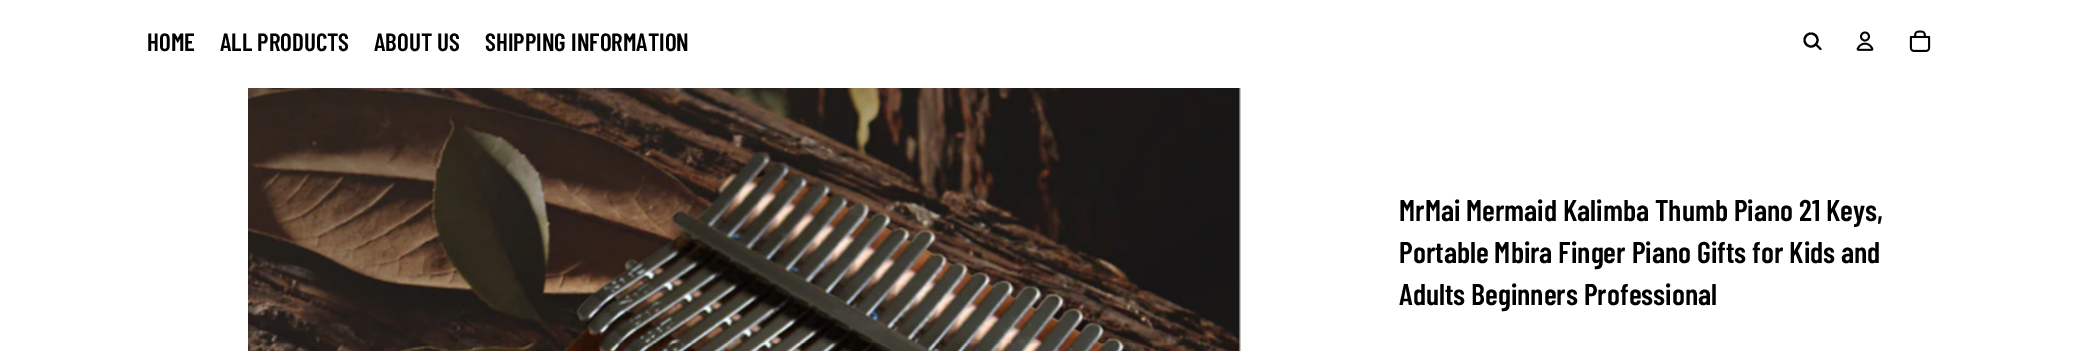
%!PS
<< /PageSize [2093 351] >> setpagedevice
/picture { 5 dict begin { /h /w /y /x /name } { exch def } forall
  gsave x y translate w h scale
  w h 8 [w 0 0 h 0 0] name (r) file false 3 colorimage grestore end } def
0 351 translate 1 -1 scale
4 setmiterlimit
1 setgray
0 0 2093 351 rectfill
/BarlowCondensed-SemiBold [25 0 0 -25 0 0] selectfont
0 setgray
147 51 moveto (HOME) show
220 51 moveto (ALL PRODUCTS) show
374 51 moveto (ABOUT US) show
485 51 moveto (SHIPPING INFORMATION) show
2.1 setlinewidth
newpath 1811 40 6.5 0 360 arc closepath stroke
1 setlinecap
1 setlinejoin
newpath 1816 44.5 moveto 1820.5 49 lineto stroke
(img1.rgb) 1856 31 18 20 picture
(img2.rgb) 1909 30 22 22 picture
(img3.rgb) 248 88 993 263 picture
/BarlowCondensed-SemiBold [30 0 0 -30 0 0] selectfont
1399 221 moveto (MrMai Mermaid Kalimba Thumb Piano 21 Keys,) show
1399 263 moveto (Portable Mbira Finger Piano Gifts for Kids and) show
1399 305 moveto (Adults Beginners Professional) show
showpage
